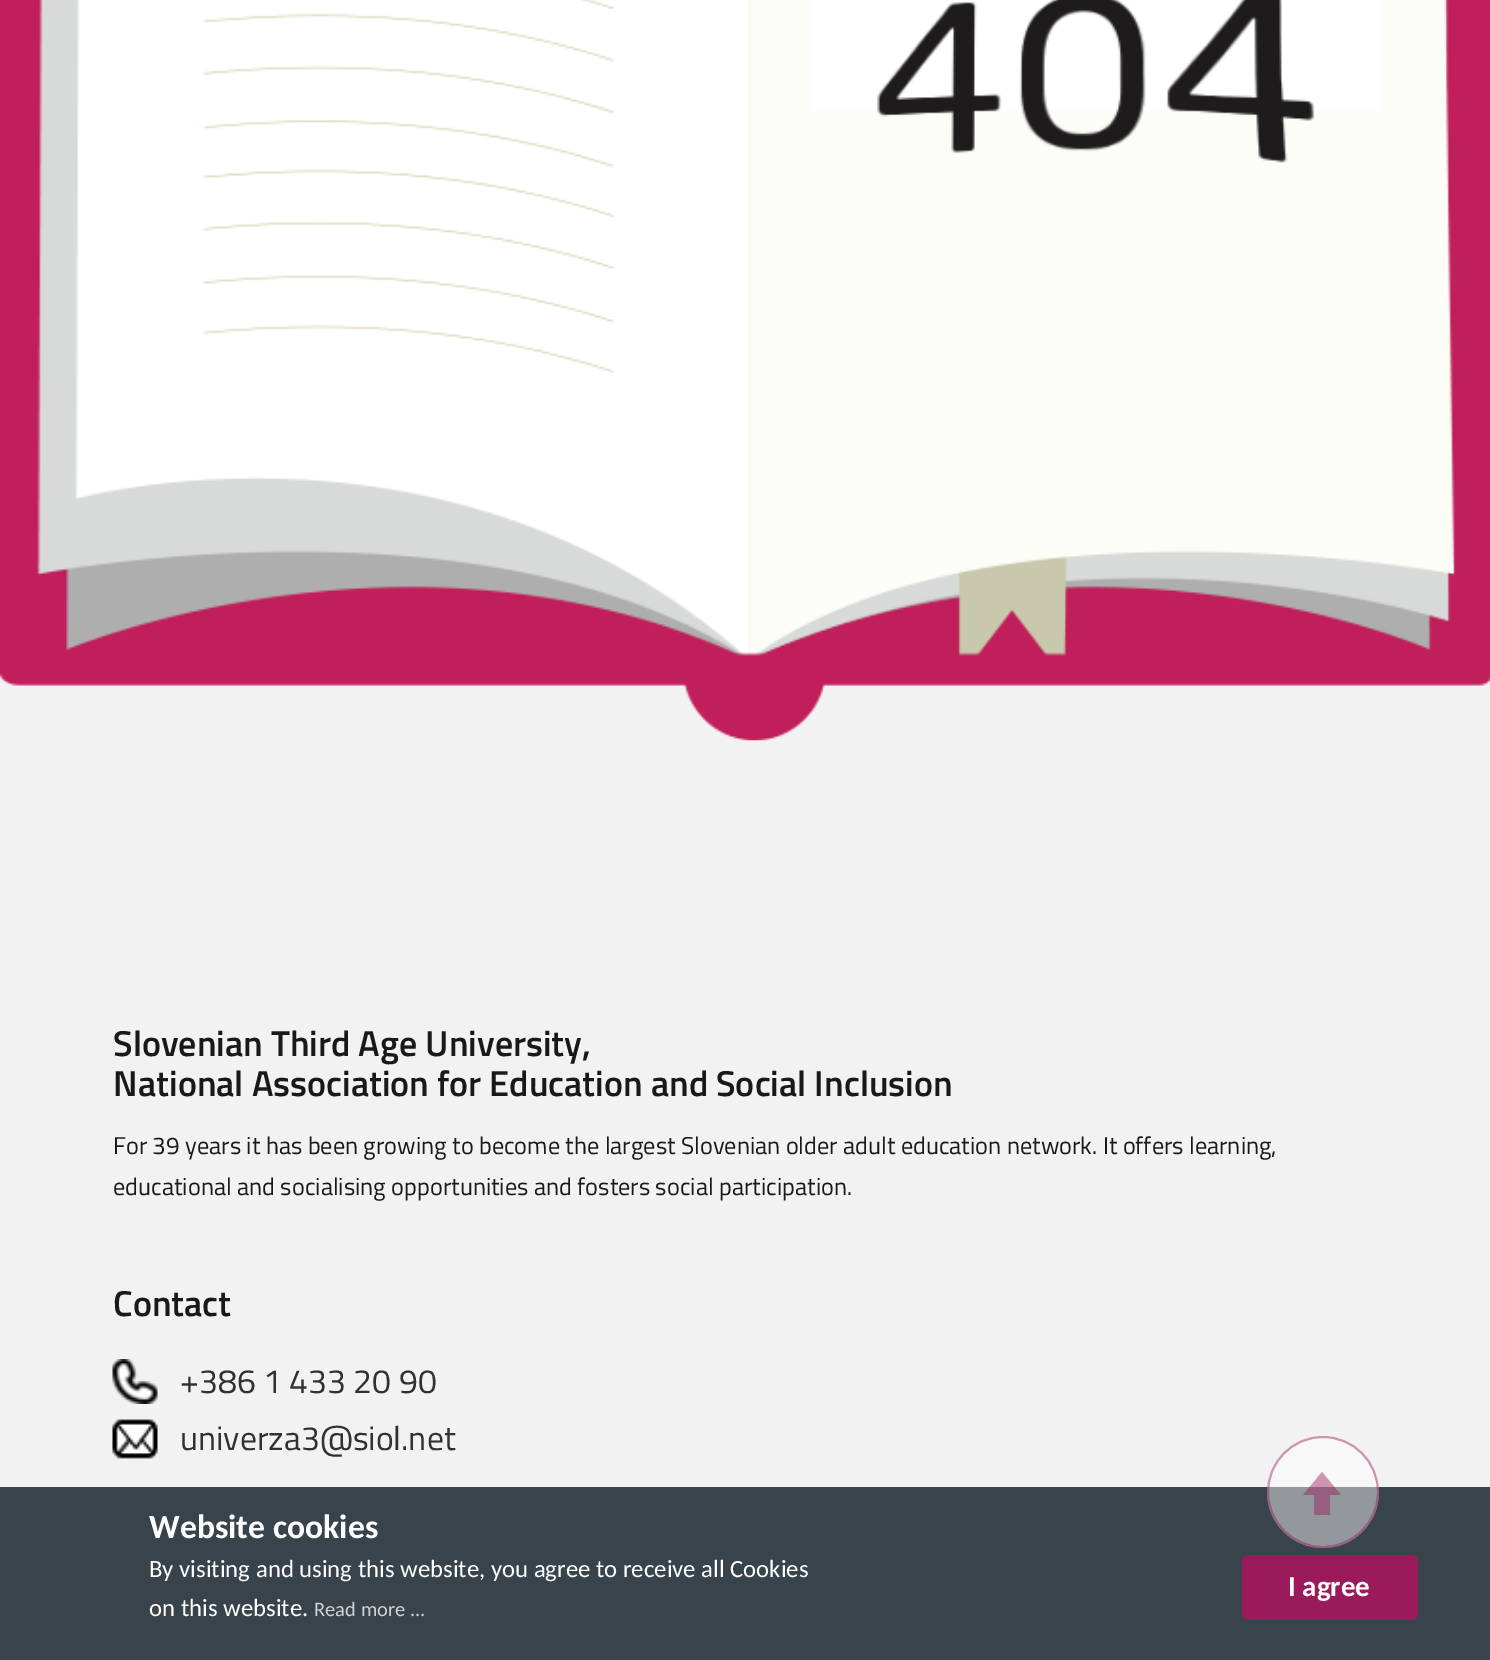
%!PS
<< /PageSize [1490 1660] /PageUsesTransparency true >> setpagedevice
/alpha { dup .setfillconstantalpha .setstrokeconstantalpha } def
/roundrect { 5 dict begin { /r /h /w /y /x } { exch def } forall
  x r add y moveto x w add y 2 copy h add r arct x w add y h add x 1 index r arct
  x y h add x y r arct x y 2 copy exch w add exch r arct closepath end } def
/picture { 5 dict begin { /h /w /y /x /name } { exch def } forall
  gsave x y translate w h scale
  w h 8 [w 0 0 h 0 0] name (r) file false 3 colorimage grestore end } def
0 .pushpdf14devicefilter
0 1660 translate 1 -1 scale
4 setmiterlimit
0.949 setgray
0 0 1490 1660 rectfill
(img1.rgb) 0 0 1490 741 picture
/TitilliumWeb-SemiBold [36 0 0 -36 0 0] selectfont
0.098 setgray
113 1056 moveto (Slovenian Third Age University,) show
113 1096 moveto (National Association for Education and Social Inclusion) show
/TitilliumWeb-Regular [24.35 0 0 -24.35 0 0] selectfont
113 1154 moveto (For 39 years it has been growing to become the largest Slovenian older adult education network. It offers learning,) show
113 1195 moveto (educational and socialising opportunities and fosters social participation.) show
/TitilliumWeb-SemiBold [36 0 0 -36 0 0] selectfont
113 1316 moveto (Contact) show
(img2.rgb) 112 1359 46 45 picture
/TitilliumWeb-Regular [33.75 0 0 -33.75 0 0] selectfont
0.192 setgray
180 1393 moveto (+386 1 433 20 90) show
(img3.rgb) 112 1419 46 40 picture
180 1450 moveto (univerza3@siol.net) show
0.224 0.263 0.294 setrgbcolor
0 1487 1490 173 rectfill
/Carlito-Bold [33.75 0 0 -33.75 0 0] selectfont
1 setgray
149 1538 moveto (Website cookies) show
/Carlito-Regular [24.75 0 0 -24.75 0 0] selectfont
149 1577 moveto (By visiting and using this website, you agree to receive all Cookies) show
149 1616 moveto (on this website.) show
/Carlito-Regular [20.5 0 0 -20.5 0 0] selectfont
0.827 0.824 0.827 setrgbcolor
314 1616 moveto (Read more ...) show
0.604 0.102 0.357 setrgbcolor
1242 1555 176 65 7 roundrect fill
/Carlito-Bold [29 0 0 -29 0 0] selectfont
1 setgray
1288 1596 moveto (I agree) show
0.45 alpha
newpath 1323 1492 56 0 360 arc closepath fill
0.604 0.102 0.357 setrgbcolor
2 setlinewidth
newpath 1323 1492 55 0 360 arc closepath stroke
newpath 1341 1495 moveto 1330 1495 lineto 1330 1515 lineto 1314 1515 lineto 1314 1495 lineto 1303 1495 lineto 1322 1472 lineto closepath fill
.poppdf14devicefilter showpage
